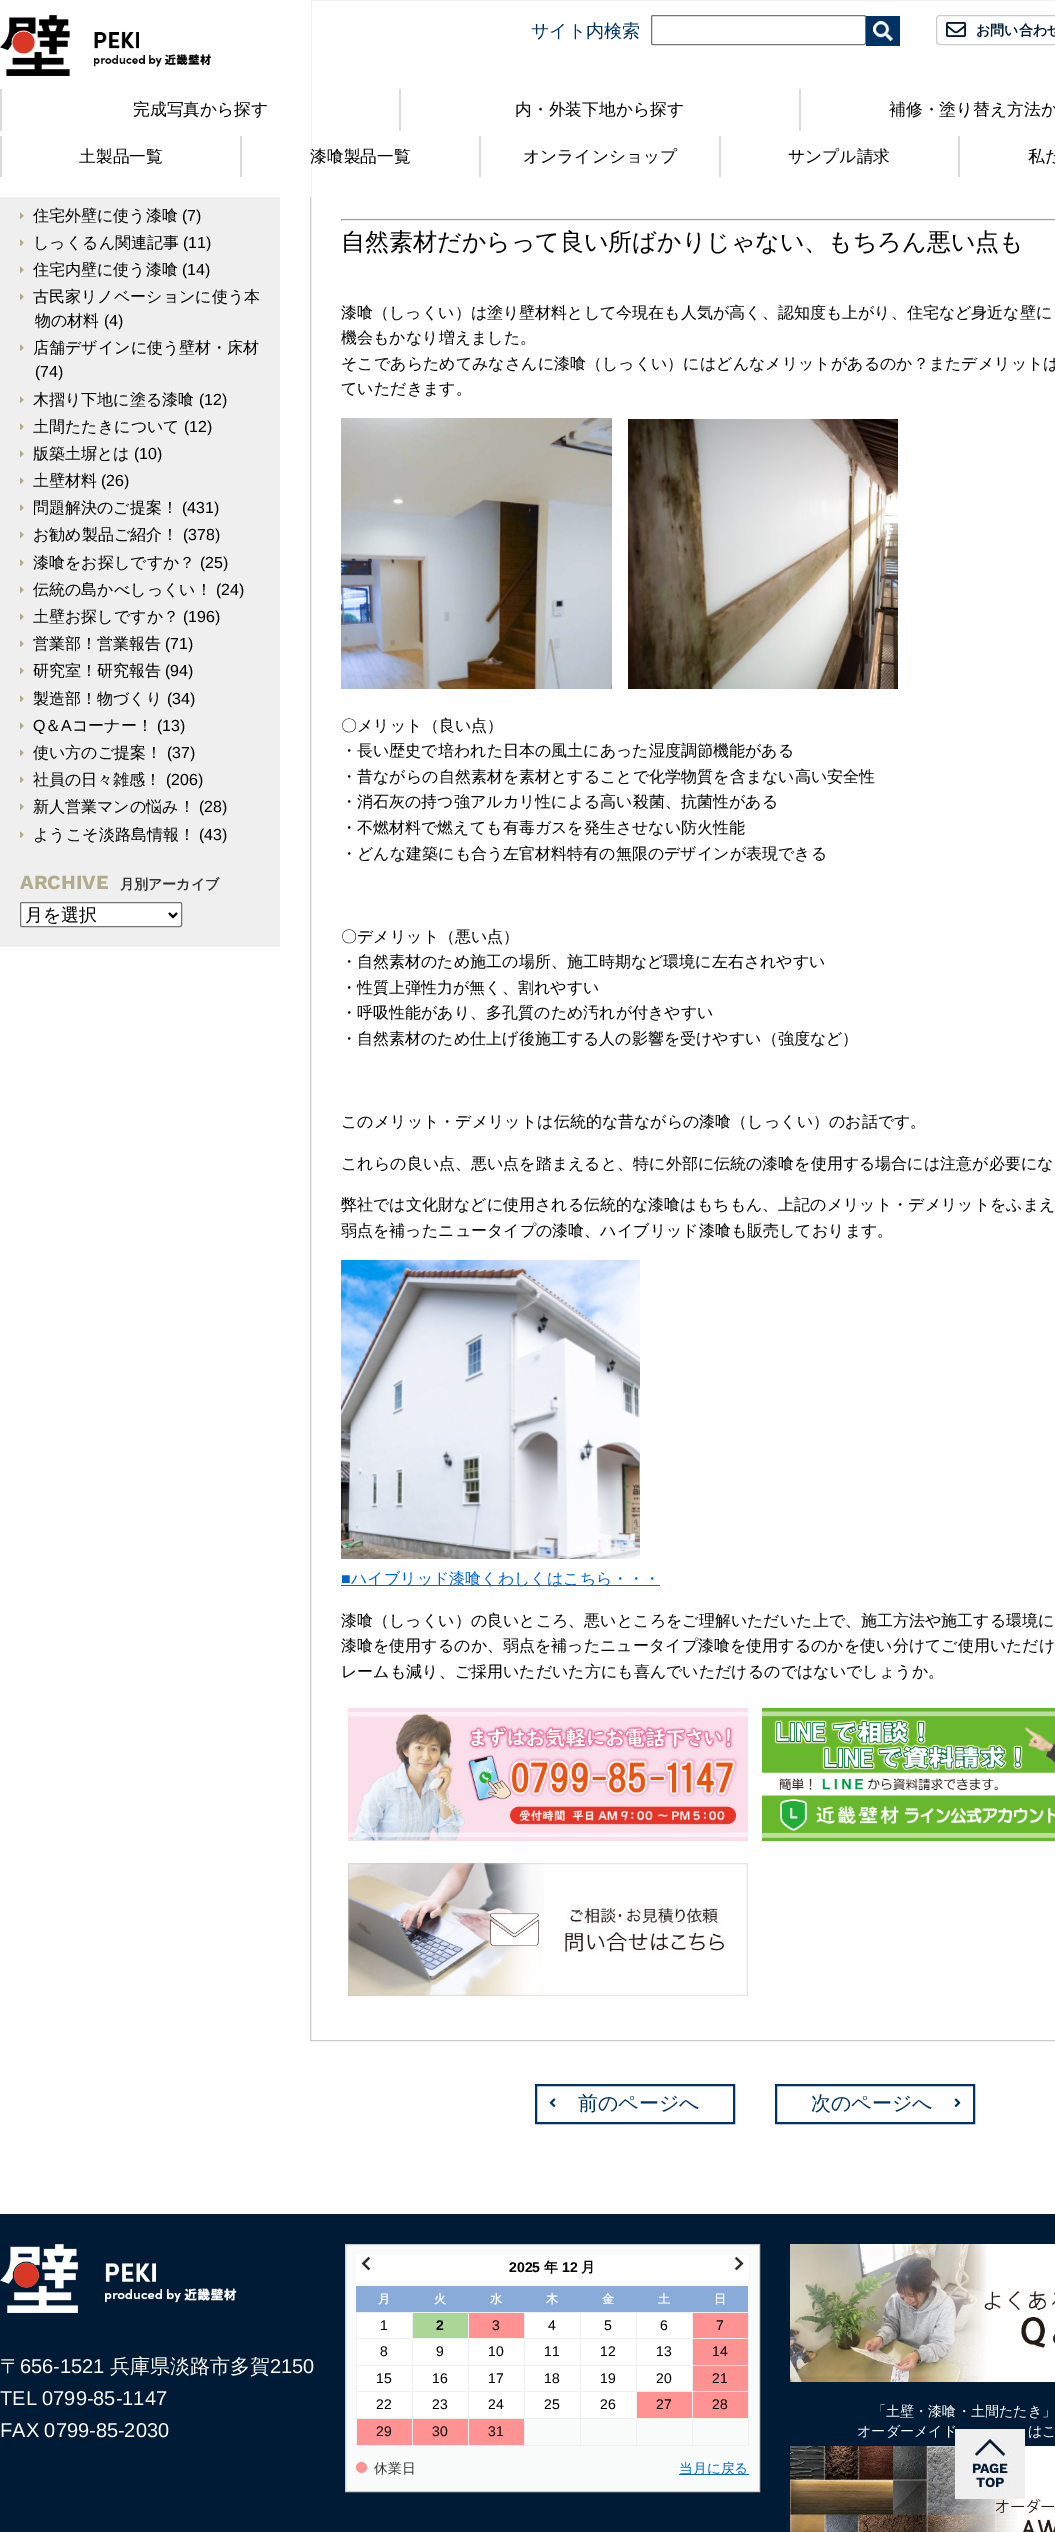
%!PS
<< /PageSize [1055 2532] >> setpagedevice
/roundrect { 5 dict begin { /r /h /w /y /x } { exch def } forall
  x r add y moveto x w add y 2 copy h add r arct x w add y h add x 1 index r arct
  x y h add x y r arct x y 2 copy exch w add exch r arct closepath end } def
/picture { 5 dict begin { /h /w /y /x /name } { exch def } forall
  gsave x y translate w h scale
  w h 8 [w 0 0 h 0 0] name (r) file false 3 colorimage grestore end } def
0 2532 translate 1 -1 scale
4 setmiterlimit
1 setgray
0 0 1055 2532 rectfill
0.8 setgray
310.5 -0.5 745 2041 rectstroke
1 setgray
310 0 1 197 rectfill
(img1.rgb) 0 15 212 61 picture
/WenQuanYiZenHei-Medium [18 0 0 -18 0 0] selectfont
0 0.196 0.396 setrgbcolor
531 37 moveto (サイト内検索) show
0.463 setgray
651.5 15.5 214 29 1.5 roundrect stroke
(img2.rgb) 866 16 34 30 picture
(img3.rgb) 946 22 20 15 picture
0.8 setgray
936.5 15.5 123 29 3.5 roundrect stroke
/WenQuanYiZenHei-Bold [14 0 0 -14 0 0] selectfont
0 0.106 0.208 setrgbcolor
976 35 moveto (お問い合わせ) show
0.859 setgray
0 89 2 42 rectfill
/WenQuanYiZenHei-Medium [16.75 0 0 -16.75 0 0] selectfont
0 setgray
133 115 moveto (完成写真から探す) show
0.859 setgray
399 89 2 42 rectfill
0 setgray
515 115 moveto (内・外装下地から探す) show
0.859 setgray
799 89 2 42 rectfill
0 setgray
889 115 moveto (補修・塗り替え方法か) show
0.859 setgray
0 136 2 41 rectfill
0 setgray
79 162 moveto (土製品一覧) show
0.859 setgray
240 136 2 41 rectfill
0 setgray
310 162 moveto (漆喰製品一覧) show
0.859 setgray
479 136 2 41 rectfill
0 setgray
523 162 moveto (オンラインショップ) show
0.859 setgray
719 136 2 41 rectfill
0 setgray
788 162 moveto (サンプル請求) show
0.859 setgray
958 136 2 41 rectfill
0 setgray
1028 162 moveto (私た) show
0.937 setgray
0 197 280 750 rectfill
(img4.rgb) 20 212 4 7 picture
/WenQuanYiZenHei-Medium [16 0 0 -16 0 0] selectfont
0 setgray
33 221 moveto (住宅外壁に使う漆喰) show
/LiberationSans-Regular [16 0 0 -16 0 0] selectfont
182 221 moveto (\(7\)) show
(img4.rgb) 20 239 4 7 picture
/WenQuanYiZenHei-Medium [16 0 0 -16 0 0] selectfont
33 248 moveto (しっくるん関連記事) show
/LiberationSans-Regular [16 0 0 -16 0 0] selectfont
183 248 moveto (\(11\)) show
(img4.rgb) 20 266 4 7 picture
/WenQuanYiZenHei-Medium [16 0 0 -16 0 0] selectfont
33 275 moveto (住宅内壁に使う漆喰) show
/LiberationSans-Regular [16 0 0 -16 0 0] selectfont
182 275 moveto (\(14\)) show
(img4.rgb) 20 293 4 7 picture
/WenQuanYiZenHei-Medium [16 0 0 -16 0 0] selectfont
33 302 moveto (古民家リノベーションに使う本) show
35 326 moveto (物の材料) show
/LiberationSans-Regular [16 0 0 -16 0 0] selectfont
104 326 moveto (\(4\)) show
(img4.rgb) 20 344 4 7 picture
/WenQuanYiZenHei-Medium [16 0 0 -16 0 0] selectfont
33 353 moveto (店舗デザインに使う壁材・床材) show
/LiberationSans-Regular [16 0 0 -16 0 0] selectfont
35 377 moveto (\(74\)) show
(img4.rgb) 20 396 4 7 picture
/WenQuanYiZenHei-Medium [16 0 0 -16 0 0] selectfont
33 405 moveto (木摺り下地に塗る漆喰) show
/LiberationSans-Regular [16 0 0 -16 0 0] selectfont
199 405 moveto (\(12\)) show
(img4.rgb) 20 423 4 7 picture
/WenQuanYiZenHei-Medium [16 0 0 -16 0 0] selectfont
33 432 moveto (土間たたきについて) show
/LiberationSans-Regular [16 0 0 -16 0 0] selectfont
184 432 moveto (\(12\)) show
(img4.rgb) 20 450 4 7 picture
/WenQuanYiZenHei-Medium [16 0 0 -16 0 0] selectfont
33 459 moveto (版築土塀とは) show
/LiberationSans-Regular [16 0 0 -16 0 0] selectfont
134 459 moveto (\(10\)) show
(img4.rgb) 20 477 4 7 picture
/WenQuanYiZenHei-Medium [16 0 0 -16 0 0] selectfont
33 486 moveto (土壁材料) show
/LiberationSans-Regular [16 0 0 -16 0 0] selectfont
101 486 moveto (\(26\)) show
(img4.rgb) 20 504 4 7 picture
/WenQuanYiZenHei-Medium [16 0 0 -16 0 0] selectfont
33 513 moveto (問題解決のご提案！) show
/LiberationSans-Regular [16 0 0 -16 0 0] selectfont
182 513 moveto (\(431\)) show
(img4.rgb) 20 531 4 7 picture
/WenQuanYiZenHei-Medium [16 0 0 -16 0 0] selectfont
33 540 moveto (お勧め製品ご紹介！) show
/LiberationSans-Regular [16 0 0 -16 0 0] selectfont
183 540 moveto (\(378\)) show
(img4.rgb) 20 559 4 7 picture
/WenQuanYiZenHei-Medium [16 0 0 -16 0 0] selectfont
33 568 moveto (漆喰をお探しですか？) show
/LiberationSans-Regular [16 0 0 -16 0 0] selectfont
200 568 moveto (\(25\)) show
(img4.rgb) 20 586 4 7 picture
/WenQuanYiZenHei-Medium [16 0 0 -16 0 0] selectfont
33 595 moveto (伝統の島かべしっくい！) show
/LiberationSans-Regular [16 0 0 -16 0 0] selectfont
216 595 moveto (\(24\)) show
(img4.rgb) 20 613 4 7 picture
/WenQuanYiZenHei-Medium [16 0 0 -16 0 0] selectfont
33 622 moveto (土壁お探しですか？) show
/LiberationSans-Regular [16 0 0 -16 0 0] selectfont
183 622 moveto (\(196\)) show
(img4.rgb) 20 640 4 7 picture
/WenQuanYiZenHei-Medium [16 0 0 -16 0 0] selectfont
33 649 moveto (営業部！営業報告) show
/LiberationSans-Regular [16 0 0 -16 0 0] selectfont
165 649 moveto (\(71\)) show
(img4.rgb) 20 667 4 7 picture
/WenQuanYiZenHei-Medium [16 0 0 -16 0 0] selectfont
33 676 moveto (研究室！研究報告) show
/LiberationSans-Regular [16 0 0 -16 0 0] selectfont
165 676 moveto (\(94\)) show
(img4.rgb) 20 695 4 7 picture
/WenQuanYiZenHei-Medium [16 0 0 -16 0 0] selectfont
33 704 moveto (製造部！物づくり) show
/LiberationSans-Regular [16 0 0 -16 0 0] selectfont
167 704 moveto (\(34\)) show
(img4.rgb) 20 722 4 7 picture
33 731 moveto (Q) show
/WenQuanYiZenHei-Medium [16 0 0 -16 0 0] selectfont
45 731 moveto (＆) show
/LiberationSans-Regular [16 0 0 -16 0 0] selectfont
61 731 moveto (A) show
/WenQuanYiZenHei-Medium [16 0 0 -16 0 0] selectfont
72 731 moveto (コーナー！) show
/LiberationSans-Regular [16 0 0 -16 0 0] selectfont
157 731 moveto (\(13\)) show
(img4.rgb) 20 749 4 7 picture
/WenQuanYiZenHei-Medium [16 0 0 -16 0 0] selectfont
33 758 moveto (使い方のご提案！) show
/LiberationSans-Regular [16 0 0 -16 0 0] selectfont
167 758 moveto (\(37\)) show
(img4.rgb) 20 776 4 7 picture
/WenQuanYiZenHei-Medium [16 0 0 -16 0 0] selectfont
33 785 moveto (社員の日々雑感！) show
/LiberationSans-Regular [16 0 0 -16 0 0] selectfont
166 785 moveto (\(206\)) show
(img4.rgb) 20 803 4 7 picture
/WenQuanYiZenHei-Medium [16 0 0 -16 0 0] selectfont
33 812 moveto (新人営業マンの悩み！) show
/LiberationSans-Regular [16 0 0 -16 0 0] selectfont
199 812 moveto (\(28\)) show
(img4.rgb) 20 831 4 7 picture
/WenQuanYiZenHei-Medium [16 0 0 -16 0 0] selectfont
33 840 moveto (ようこそ淡路島情報！) show
/LiberationSans-Regular [16 0 0 -16 0 0] selectfont
199 840 moveto (\(43\)) show
/WorkSans-Bold [20 0 0 -20 0 0] selectfont
0.698 0.675 0.549 setrgbcolor
20 889 moveto (ARCHIVE) show
/WenQuanYiZenHei-Bold [14 0 0 -14 0 0] selectfont
0.2 setgray
120 889 moveto (月別アーカイブ) show
1 setgray
20.5 902.5 161 24 1.5 roundrect gsave fill grestore
0.463 setgray
stroke
0 setgray
2 setlinewidth
newpath 169 913 moveto 173 917 lineto 177 913 lineto stroke
/WenQuanYiZenHei-Medium [18 0 0 -18 0 0] selectfont
25 921 moveto (月を選択) show
0.624 setgray
341 219 714 1 rectfill
0.933 setgray
341 220 714 1 rectfill
0.624 setgray
341 219 1 2 rectfill
/WenQuanYiZenHei-Medium [24 0 0 -24 0 0] selectfont
0 setgray
341 250 moveto (自然素材だからって良い所ばかりじゃない、もちろん悪い点も) show
/WenQuanYiZenHei-Medium [16 0 0 -16 0 0] selectfont
341 318 moveto (漆喰（しっくい）は塗り壁材料として今現在も人気が高く、認知度も上がり、住宅など身近な壁に) show
341 343 moveto (機会もかなり増えました。) show
341 369 moveto (そこであらためてみなさんに漆喰（しっくい）にはどんなメリットがあるのか？またデメリットは) show
341 394 moveto (ていただきます。) show
(img5.rgb) 341 418 271 271 picture
(img6.rgb) 628 419 270 270 picture
341 731 moveto (〇メリット（良い点）) show
341 756 moveto (・長い歴史で培われた日本の風土にあった湿度調節機能がある) show
341 782 moveto (・昔ながらの自然素材を素材とすることで化学物質を含まない高い安全性) show
341 807 moveto (・消石灰の持つ強アルカリ性による高い殺菌、抗菌性がある) show
341 833 moveto (・不燃材料で燃えても有毒ガスを発生させない防火性能) show
341 859 moveto (・どんな建築にも合う左官材料特有の無限のデザインが表現できる) show
341 942 moveto (〇デメリット（悪い点）) show
341 967 moveto (・自然素材のため施工の場所、施工時期など環境に左右されやすい) show
341 993 moveto (・性質上弾性力が無く、割れやすい) show
341 1018 moveto (・呼吸性能があり、多孔質のため汚れが付きやすい) show
341 1044 moveto (・自然素材のため仕上げ後施工する人の影響を受けやすい（強度など）) show
341 1127 moveto (このメリット・デメリットは伝統的な昔ながらの漆喰（しっくい）のお話です。) show
341 1169 moveto (これらの良い点、悪い点を踏まえると、特に外部に伝統の漆喰を使用する場合には注意が必要にな) show
341 1210 moveto (弊社では文化財などに使用される伝統的な漆喰はもちもん、上記のメリット・デメリットをふまえ) show
341 1236 moveto (弱点を補ったニュータイプの漆喰、ハイブリッド漆喰も販売しております。) show
(img7.rgb) 341 1260 299 299 picture
/LiberationSans-Regular [16 0 0 -16 0 0] selectfont
0 0.4 0.8 setrgbcolor
341 1584 moveto (■) show
341 1585 319 1 rectfill
/WenQuanYiZenHei-Medium [16 0 0 -16 0 0] selectfont
351 1584 moveto (ハイブリッド漆喰くわしくはこちら・・・) show
0 setgray
341 1626 moveto (漆喰（しっくい）の良いところ、悪いところをご理解いただいた上で、施工方法や施工する環境に) show
341 1651 moveto (漆喰を使用するのか、弱点を補ったニュータイプ漆喰を使用するのかを使い分けてご使用いただけ) show
341 1677 moveto (レームも減り、ご採用いただいた方にも喜んでいただけるのではないでしょうか。) show
(img8.rgb) 348 1708 400 133 picture
(img9.rgb) 762 1708 293 133 picture
(img10.rgb) 348 1863 400 133 picture
0 0.196 0.396 setrgbcolor
536 2085 198 38 rectstroke
(img11.rgb) 549 2098 7 10 picture
/WenQuanYiZenHei-Medium [20 0 0 -20 0 0] selectfont
578 2110 moveto (前のページへ) show
776 2085 198 38 rectstroke
811 2110 moveto (次のページへ) show
(img12.rgb) 954 2098 7 10 picture
0 0.106 0.208 setrgbcolor
0 2214 1055 318 rectfill
(img13.rgb) 0 2244 237 69 picture
1 setgray
0 2373 moveto (〒) show
/LiberationSans-Regular [20 0 0 -20 0 0] selectfont
20 2373 moveto (656-1521) show
/WenQuanYiZenHei-Medium [20 0 0 -20 0 0] selectfont
110 2373 moveto (兵庫県淡路市多賀) show
/LiberationSans-Regular [20 0 0 -20 0 0] selectfont
270 2373 moveto (2150) show
0 2405 moveto (TEL 0799-85-1147) show
0 2437 moveto (FAX 0799-85-2030) show
0.976 0.984 0.984 setrgbcolor
newpath 345.5 2244.5 moveto 759.5 2244.5 lineto 759.5 2491.5 lineto 345.5 2491.5 lineto closepath gsave fill grestore
0.8 setgray
1 setlinewidth
stroke
1 setgray
356 2255 393 26 rectfill
(img14.rgb) 361 2256 10 15 picture
/LiberationSans-Bold [14 0 0 -14 0 0] selectfont
0 setgray
509 2272 moveto (2025) show
/WenQuanYiZenHei-Bold [14 0 0 -14 0 0] selectfont
544 2272 moveto (年) show
/LiberationSans-Bold [14 0 0 -14 0 0] selectfont
562 2272 moveto (12) show
/WenQuanYiZenHei-Bold [14 0 0 -14 0 0] selectfont
581 2272 moveto (月) show
(img15.rgb) 734 2256 10 15 picture
0.537 0.671 0.851 setrgbcolor
356 2286 392 26 rectfill
/WenQuanYiZenHei-Bold [12 0 0 -12 0 0] selectfont
1 setgray
378 2303 moveto (月) show
434 2303 moveto (火) show
490 2303 moveto (水) show
546 2303 moveto (木) show
602 2303 moveto (金) show
658 2303 moveto (土) show
714 2303 moveto (日) show
357 2313 55 25 rectfill
0.941 setgray
692 2312 57 1 rectfill
692 2338 57 1 rectfill
692 2365 57 1 rectfill
692 2391 57 1 rectfill
692 2418 57 1 rectfill
748 2418 1 28 rectfill
692 2445 57 1 rectfill
692 2418 1 28 rectfill
636 2418 57 1 rectfill
692 2391 1 28 rectfill
636 2391 57 1 rectfill
692 2365 1 27 rectfill
636 2365 57 1 rectfill
692 2338 1 28 rectfill
636 2338 57 1 rectfill
692 2312 1 27 rectfill
636 2312 57 1 rectfill
636 2445 57 1 rectfill
636 2418 1 28 rectfill
580 2418 57 1 rectfill
636 2391 1 28 rectfill
580 2391 57 1 rectfill
636 2365 1 27 rectfill
580 2365 57 1 rectfill
636 2338 1 28 rectfill
580 2338 57 1 rectfill
636 2312 1 27 rectfill
580 2312 57 1 rectfill
580 2445 57 1 rectfill
580 2418 1 28 rectfill
524 2418 57 1 rectfill
580 2391 1 28 rectfill
524 2391 57 1 rectfill
580 2365 1 27 rectfill
524 2365 57 1 rectfill
580 2338 1 28 rectfill
524 2338 57 1 rectfill
580 2312 1 27 rectfill
524 2312 57 1 rectfill
524 2445 57 1 rectfill
524 2418 1 28 rectfill
468 2418 57 1 rectfill
524 2391 1 28 rectfill
468 2391 57 1 rectfill
524 2365 1 27 rectfill
468 2365 57 1 rectfill
524 2338 1 28 rectfill
468 2338 57 1 rectfill
524 2312 1 27 rectfill
468 2312 57 1 rectfill
468 2445 57 1 rectfill
468 2418 1 28 rectfill
412 2418 57 1 rectfill
468 2391 1 28 rectfill
412 2391 57 1 rectfill
468 2365 1 27 rectfill
412 2365 57 1 rectfill
468 2338 1 28 rectfill
412 2338 57 1 rectfill
468 2312 1 27 rectfill
412 2312 57 1 rectfill
412 2445 57 1 rectfill
412 2418 1 28 rectfill
356 2418 57 1 rectfill
412 2391 1 28 rectfill
356 2391 57 1 rectfill
412 2365 1 27 rectfill
356 2365 57 1 rectfill
412 2338 1 28 rectfill
356 2338 57 1 rectfill
412 2312 1 27 rectfill
356 2312 57 1 rectfill
356 2445 57 1 rectfill
356 2418 1 28 rectfill
356 2391 1 28 rectfill
356 2365 1 27 rectfill
356 2338 1 28 rectfill
356 2312 1 27 rectfill
/LiberationSans-Regular [14 0 0 -14 0 0] selectfont
0 setgray
380 2330 moveto (1) show
0.675 0.835 0.596 setrgbcolor
413 2313 55 25 rectfill
/LiberationSans-Bold [14 0 0 -14 0 0] selectfont
0 setgray
436 2330 moveto (2) show
1 0.576 0.576 setrgbcolor
469 2313 55 25 rectfill
/LiberationSans-Regular [14 0 0 -14 0 0] selectfont
0 setgray
492 2330 moveto (3) show
1 setgray
525 2313 55 25 rectfill
0 setgray
548 2330 moveto (4) show
1 setgray
581 2313 55 25 rectfill
0 setgray
604 2330 moveto (5) show
1 setgray
637 2313 55 25 rectfill
0 setgray
660 2330 moveto (6) show
1 0.576 0.576 setrgbcolor
693 2313 55 25 rectfill
0.941 setgray
748 2391 1 28 rectfill
748 2365 1 27 rectfill
748 2338 1 28 rectfill
748 2312 1 27 rectfill
0 setgray
716 2330 moveto (7) show
1 setgray
357 2339 55 26 rectfill
0 setgray
380 2356 moveto (8) show
1 setgray
413 2339 55 26 rectfill
0 setgray
436 2356 moveto (9) show
1 setgray
469 2339 55 26 rectfill
0 setgray
488 2356 moveto (10) show
1 setgray
525 2339 55 26 rectfill
0 setgray
544 2356 moveto (11) show
1 setgray
581 2339 55 26 rectfill
0 setgray
600 2356 moveto (12) show
1 setgray
637 2339 55 26 rectfill
0 setgray
656 2356 moveto (13) show
1 0.576 0.576 setrgbcolor
693 2339 55 26 rectfill
0 setgray
712 2356 moveto (14) show
1 setgray
357 2366 55 25 rectfill
0 setgray
376 2383 moveto (15) show
1 setgray
413 2366 55 25 rectfill
0 setgray
432 2383 moveto (16) show
1 setgray
469 2366 55 25 rectfill
0 setgray
488 2383 moveto (17) show
1 setgray
525 2366 55 25 rectfill
0 setgray
544 2383 moveto (18) show
1 setgray
581 2366 55 25 rectfill
0 setgray
600 2383 moveto (19) show
1 setgray
637 2366 55 25 rectfill
0 setgray
656 2383 moveto (20) show
1 0.576 0.576 setrgbcolor
693 2366 55 25 rectfill
0 setgray
712 2383 moveto (21) show
1 setgray
357 2392 55 26 rectfill
0 setgray
376 2409 moveto (22) show
1 setgray
413 2392 55 26 rectfill
0 setgray
432 2409 moveto (23) show
1 setgray
469 2392 55 26 rectfill
0 setgray
488 2409 moveto (24) show
1 setgray
525 2392 55 26 rectfill
0 setgray
544 2409 moveto (25) show
1 setgray
581 2392 55 26 rectfill
0 setgray
600 2409 moveto (26) show
1 0.576 0.576 setrgbcolor
637 2392 55 26 rectfill
0 setgray
656 2409 moveto (27) show
1 0.576 0.576 setrgbcolor
693 2392 55 26 rectfill
0 setgray
712 2409 moveto (28) show
1 0.576 0.576 setrgbcolor
357 2419 55 26 rectfill
0 setgray
376 2436 moveto (29) show
1 0.576 0.576 setrgbcolor
413 2419 55 26 rectfill
0 setgray
432 2436 moveto (30) show
1 0.576 0.576 setrgbcolor
469 2419 55 26 rectfill
0 setgray
488 2436 moveto (31) show
1 0.576 0.576 setrgbcolor
newpath 361.5 2467.5 5.5 0 360 arc closepath fill
/WenQuanYiZenHei-Medium [13.75 0 0 -13.75 0 0] selectfont
0.2 setgray
374 2473 moveto (休業日) show
0 0.4 0.8 setrgbcolor
679 2474 70 1 rectfill
679 2473 moveto (当月に戻る) show
(img16.rgb) 790 2244 265 138 picture
/WenQuanYiZenHei-Medium [14.1 0 0 -14.1 0 0] selectfont
1 setgray
872 2416 moveto (「土壁・漆喰・土間たたき」) show
857 2436 moveto (オーダーメイド) show
1028 2436 moveto (はこ) show
(img17.rgb) 790 2446 265 86 picture
(img18.rgb) 955 2429 70 70 picture
showpage
